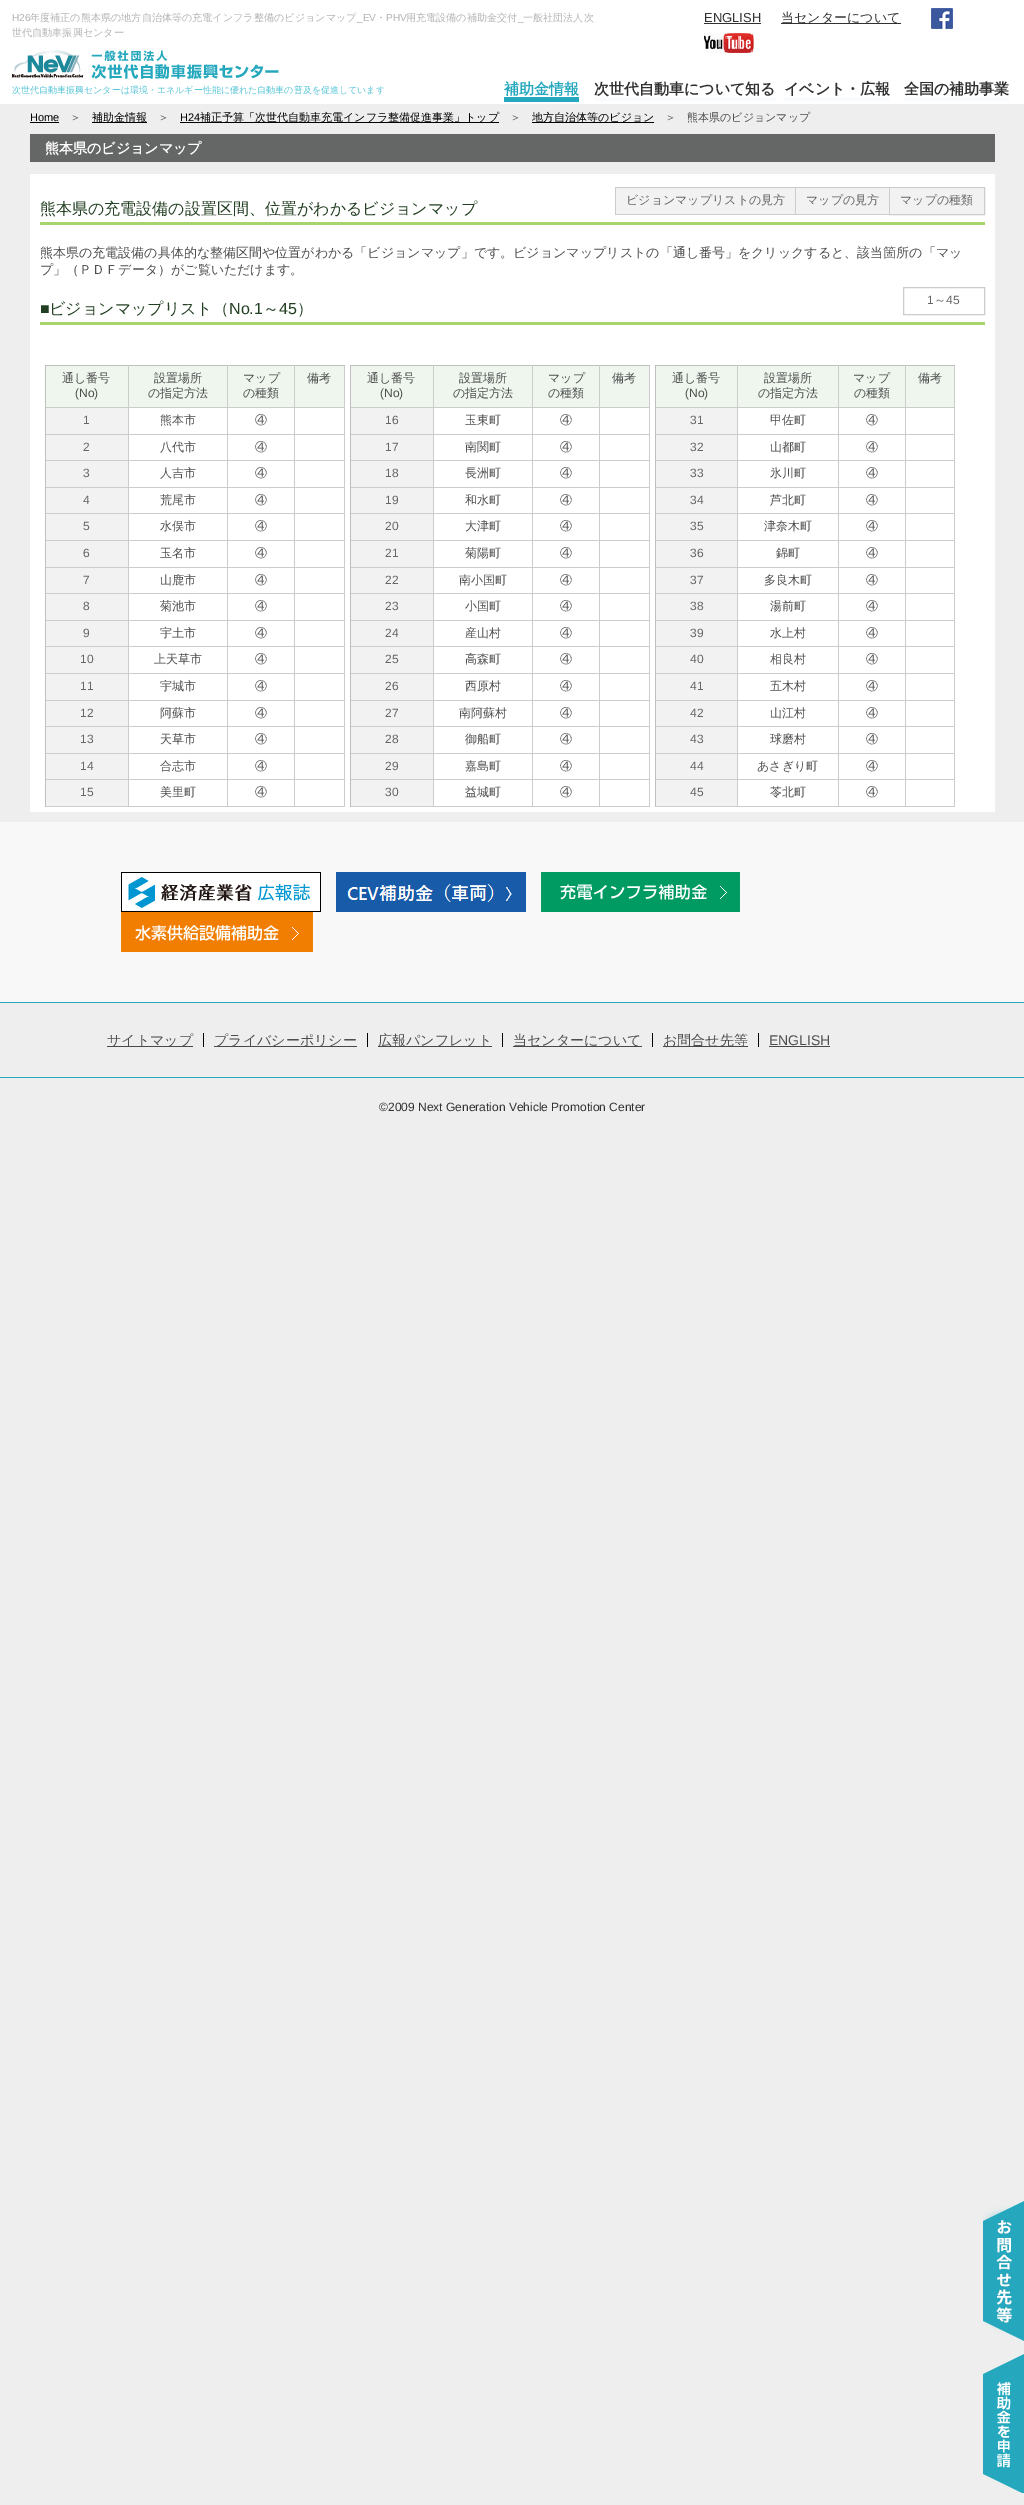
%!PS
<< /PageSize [1024 2505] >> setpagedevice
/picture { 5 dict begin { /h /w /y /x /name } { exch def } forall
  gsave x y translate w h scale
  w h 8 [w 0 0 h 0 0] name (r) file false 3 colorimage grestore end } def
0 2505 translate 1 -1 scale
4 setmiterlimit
0.933 setgray
0 0 1024 2505 rectfill
1 setgray
0 0 1024 104 rectfill
/LiberationSans-Regular [10.1 0 0 -10.1 0 0] selectfont
0.706 setgray
12 21 moveto (H26) show
/WenQuanYiZenHei-Medium [10.1 0 0 -10.1 0 0] selectfont
30 21 moveto (年度補正の熊本県の地方自治体等の充電インフラ整備のビジョンマップ) show
/LiberationSans-Regular [10.1 0 0 -10.1 0 0] selectfont
357 21 moveto (_EV) show
/WenQuanYiZenHei-Medium [10.1 0 0 -10.1 0 0] selectfont
376 21 moveto (・) show
/LiberationSans-Regular [10.1 0 0 -10.1 0 0] selectfont
386 21 moveto (PHV) show
/WenQuanYiZenHei-Medium [10.1 0 0 -10.1 0 0] selectfont
406 21 moveto (用充電設備の補助金交付) show
/LiberationSans-Regular [10.1 0 0 -10.1 0 0] selectfont
518 21 moveto (_) show
/WenQuanYiZenHei-Medium [10.1 0 0 -10.1 0 0] selectfont
523 21 moveto (一般社団法人次) show
12 36 moveto (世代自動車振興センター) show
/LiberationSans-Regular [13 0 0 -13 0 0] selectfont
0.192 setgray
704 22 moveto (ENGLISH) show
704 23 57 1 rectfill
781 23 120 1 rectfill
/WenQuanYiZenHei-Medium [13 0 0 -13 0 0] selectfont
781 22 moveto (当センターについて) show
(img1.rgb) 931 8 22 21 picture
(img2.rgb) 704 33 50 20 picture
(img3.rgb) 12 50 267 29 picture
/WenQuanYiZenHei-Medium [9 0 0 -9 0 0] selectfont
0.345 0.776 0.847 setrgbcolor
12 93 moveto (次世代自動車振興センターは環境・エネルギー性能に優れた自動車の普及を促進しています) show
/WenQuanYiZenHei-Bold [15 0 0 -15 0 0] selectfont
0.145 0.659 0.741 setrgbcolor
504 94 moveto (補助金情報) show
504 97 75 5 rectfill
0.192 setgray
594 94 moveto (次世代自動車について知る) show
0.976 0.984 0.988 setrgbcolor
594 97 182 4 rectfill
0.192 setgray
784 94 moveto (イベント・広報) show
0.976 0.984 0.988 setrgbcolor
784 97 106 4 rectfill
0.192 setgray
904 94 moveto (全国の補助事業) show
0.976 0.984 0.988 setrgbcolor
904 97 105 4 rectfill
(img4.rgb) 983 2201 41 140 picture
(img5.rgb) 983 2354 41 139 picture
/LiberationSans-Regular [11 0 0 -11 0 0] selectfont
0 setgray
30 121 moveto (Home) show
30 122 29 1 rectfill
/WenQuanYiZenHei-Medium [11 0 0 -11 0 0] selectfont
0.302 setgray
70 121 moveto (＞) show
0 setgray
92 122 55 1 rectfill
92 121 moveto (補助金情報) show
0.302 setgray
158 121 moveto (＞) show
/LiberationSans-Regular [11 0 0 -11 0 0] selectfont
0 setgray
180 121 moveto (H24) show
180 122 319 1 rectfill
/WenQuanYiZenHei-Medium [11 0 0 -11 0 0] selectfont
200 121 moveto (補正予算「次世代自動車充電インフラ整備促進事業」トップ) show
0.302 setgray
510 121 moveto (＞) show
0 setgray
532 122 122 1 rectfill
532 121 moveto (地方自治体等のビジョン) show
0.302 setgray
665 121 moveto (＞　熊本県のビジョンマップ) show
0.396 0.4 0.4 setrgbcolor
30 134 965 28 rectfill
/WenQuanYiZenHei-Bold [14 0 0 -14 0 0] selectfont
1 setgray
45 153 moveto (熊本県のビジョンマップ) show
30 174 965 638 rectfill
0.659 0.831 0.427 setrgbcolor
40 222 945 3 rectfill
/WenQuanYiZenHei-Medium [16 0 0 -16 0 0] selectfont
0.137 0.247 0.137 setrgbcolor
40 214 moveto (熊本県の充電設備の設置区間、位置がわかるビジョンマップ) show
0.8 setgray
615 187 274 1 rectfill
615 214 274 1 rectfill
615 187 1 28 rectfill
0.949 setgray
616 188 179 26 rectfill
/WenQuanYiZenHei-Medium [12 0 0 -12 0 0] selectfont
0.4 setgray
626 204 moveto (ビジョンマップリストの見方) show
0.8 setgray
795 187 1 28 rectfill
0.949 setgray
796 188 93 26 rectfill
0.4 setgray
806 204 moveto (マップの見方) show
0.8 setgray
889.5 187.5 95 27 rectstroke
0.949 setgray
890 188 94 26 rectfill
0.4 setgray
900 204 moveto (マップの種類) show
/WenQuanYiZenHei-Medium [13 0 0 -13 0 0] selectfont
0.302 setgray
40 257 moveto (熊本県の充電設備の具体的な整備区間や位置がわかる「ビジョンマップ」です。ビジョンマップリストの「通し番号」をクリックすると、該当箇所の「マッ) show
40 274 moveto (プ」（ＰＤＦデータ）がご覧いただけます。) show
0.659 0.831 0.427 setrgbcolor
40 322 945 3 rectfill
/LiberationSans-Regular [16 0 0 -16 0 0] selectfont
0.137 0.247 0.137 setrgbcolor
40 314 moveto (■) show
/WenQuanYiZenHei-Medium [16 0 0 -16 0 0] selectfont
49 314 moveto (ビジョンマップリスト（) show
/LiberationSans-Regular [16 0 0 -16 0 0] selectfont
229 314 moveto (No.1) show
/WenQuanYiZenHei-Medium [16 0 0 -16 0 0] selectfont
263 314 moveto (～) show
/LiberationSans-Regular [16 0 0 -16 0 0] selectfont
279 314 moveto (45) show
/WenQuanYiZenHei-Medium [16 0 0 -16 0 0] selectfont
297 314 moveto (）) show
0.8 setgray
903.5 287.5 81 27 rectstroke
/LiberationSans-Regular [12 0 0 -12 0 0] selectfont
0.4 setgray
927 304 moveto (1) show
/WenQuanYiZenHei-Medium [12 0 0 -12 0 0] selectfont
934 304 moveto (～) show
/LiberationSans-Regular [12 0 0 -12 0 0] selectfont
946 304 moveto (45) show
0.8 setgray
344 365 1 442 rectfill
45 806 300 1 rectfill
0.933 0.965 0.933 setrgbcolor
46 366 82 41 rectfill
0.749 setgray
45 365 300 1 rectfill
0.8 setgray
294 779 1 28 rectfill
294 779 51 1 rectfill
294 753 1 27 rectfill
294 753 51 1 rectfill
294 726 1 28 rectfill
294 726 51 1 rectfill
294 700 1 27 rectfill
294 700 51 1 rectfill
294 673 1 28 rectfill
294 673 51 1 rectfill
294 646 1 28 rectfill
294 646 51 1 rectfill
294 620 1 27 rectfill
294 620 51 1 rectfill
294 593 1 28 rectfill
294 593 51 1 rectfill
294 567 1 27 rectfill
294 567 51 1 rectfill
294 540 1 28 rectfill
294 540 51 1 rectfill
294 513 1 28 rectfill
294 513 51 1 rectfill
294 487 1 27 rectfill
294 487 51 1 rectfill
294 460 1 28 rectfill
294 460 51 1 rectfill
294 434 1 27 rectfill
294 434 51 1 rectfill
294 407 1 28 rectfill
294 407 51 1 rectfill
294 365 1 43 rectfill
227 779 1 28 rectfill
227 779 68 1 rectfill
227 753 1 27 rectfill
227 753 68 1 rectfill
227 726 1 28 rectfill
227 726 68 1 rectfill
227 700 1 27 rectfill
227 700 68 1 rectfill
227 673 1 28 rectfill
227 673 68 1 rectfill
227 646 1 28 rectfill
227 646 68 1 rectfill
227 620 1 27 rectfill
227 620 68 1 rectfill
227 593 1 28 rectfill
227 593 68 1 rectfill
227 567 1 27 rectfill
227 567 68 1 rectfill
227 540 1 28 rectfill
227 540 68 1 rectfill
227 513 1 28 rectfill
227 513 68 1 rectfill
227 487 1 27 rectfill
227 487 68 1 rectfill
227 460 1 28 rectfill
227 460 68 1 rectfill
227 434 1 27 rectfill
227 434 68 1 rectfill
227 407 1 28 rectfill
227 407 68 1 rectfill
227 365 1 43 rectfill
128 779 1 28 rectfill
128 779 100 1 rectfill
128 753 1 27 rectfill
128 753 100 1 rectfill
128 726 1 28 rectfill
128 726 100 1 rectfill
128 700 1 27 rectfill
128 700 100 1 rectfill
128 673 1 28 rectfill
128 673 100 1 rectfill
128 646 1 28 rectfill
128 646 100 1 rectfill
128 620 1 27 rectfill
128 620 100 1 rectfill
128 593 1 28 rectfill
128 593 100 1 rectfill
128 567 1 27 rectfill
128 567 100 1 rectfill
128 540 1 28 rectfill
128 540 100 1 rectfill
128 513 1 28 rectfill
128 513 100 1 rectfill
128 487 1 27 rectfill
128 487 100 1 rectfill
128 460 1 28 rectfill
128 460 100 1 rectfill
128 434 1 27 rectfill
128 434 100 1 rectfill
128 407 1 28 rectfill
128 407 100 1 rectfill
128 365 1 43 rectfill
0.749 setgray
45 779 1 28 rectfill
0.8 setgray
45 779 84 1 rectfill
0.749 setgray
45 753 1 27 rectfill
0.8 setgray
45 753 84 1 rectfill
0.749 setgray
45 726 1 28 rectfill
0.8 setgray
45 726 84 1 rectfill
0.749 setgray
45 700 1 27 rectfill
0.8 setgray
45 700 84 1 rectfill
0.749 setgray
45 673 1 28 rectfill
0.8 setgray
45 673 84 1 rectfill
0.749 setgray
45 646 1 28 rectfill
0.8 setgray
45 646 84 1 rectfill
0.749 setgray
45 620 1 27 rectfill
0.8 setgray
45 620 84 1 rectfill
0.749 setgray
45 593 1 28 rectfill
0.8 setgray
45 593 84 1 rectfill
0.749 setgray
45 567 1 27 rectfill
0.8 setgray
45 567 84 1 rectfill
0.749 setgray
45 540 1 28 rectfill
0.8 setgray
45 540 84 1 rectfill
0.749 setgray
45 513 1 28 rectfill
0.8 setgray
45 513 84 1 rectfill
0.749 setgray
45 487 1 27 rectfill
0.8 setgray
45 487 84 1 rectfill
0.749 setgray
45 460 1 28 rectfill
0.8 setgray
45 460 84 1 rectfill
0.749 setgray
45 434 1 27 rectfill
0.8 setgray
45 434 84 1 rectfill
0.749 setgray
45 407 1 28 rectfill
0.8 setgray
45 407 84 1 rectfill
0.749 setgray
45 365 1 43 rectfill
/WenQuanYiZenHei-Medium [12 0 0 -12 0 0] selectfont
0.302 setgray
62 382 moveto (通し番号) show
/LiberationSans-Regular [12 0 0 -12 0 0] selectfont
75 397 moveto (\(No\)) show
0.933 0.965 0.933 setrgbcolor
129 366 98 41 rectfill
/WenQuanYiZenHei-Medium [12 0 0 -12 0 0] selectfont
0.302 setgray
154 382 moveto (設置場所) show
148 397 moveto (の指定方法) show
0.933 0.965 0.933 setrgbcolor
228 366 66 41 rectfill
0.302 setgray
243 382 moveto (マップ) show
243 397 moveto (の種類) show
0.933 0.965 0.933 setrgbcolor
295 366 49 41 rectfill
0.302 setgray
307 382 moveto (備考) show
0.949 setgray
46 408 82 26 rectfill
/LiberationSans-Regular [12 0 0 -12 0 0] selectfont
0.4 setgray
83 424 moveto (1) show
/WenQuanYiZenHei-Medium [12 0 0 -12 0 0] selectfont
0.302 setgray
160 424 moveto (熊本市) show
255 424 moveto (④) show
0.949 setgray
46 435 82 25 rectfill
/LiberationSans-Regular [12 0 0 -12 0 0] selectfont
0.4 setgray
83 451 moveto (2) show
/WenQuanYiZenHei-Medium [12 0 0 -12 0 0] selectfont
0.302 setgray
160 451 moveto (八代市) show
255 451 moveto (④) show
0.949 setgray
46 461 82 26 rectfill
/LiberationSans-Regular [12 0 0 -12 0 0] selectfont
0.4 setgray
83 477 moveto (3) show
/WenQuanYiZenHei-Medium [12 0 0 -12 0 0] selectfont
0.302 setgray
160 477 moveto (人吉市) show
255 477 moveto (④) show
0.949 setgray
46 488 82 25 rectfill
/LiberationSans-Regular [12 0 0 -12 0 0] selectfont
0.4 setgray
83 504 moveto (4) show
/WenQuanYiZenHei-Medium [12 0 0 -12 0 0] selectfont
0.302 setgray
160 504 moveto (荒尾市) show
255 504 moveto (④) show
0.949 setgray
46 514 82 26 rectfill
/LiberationSans-Regular [12 0 0 -12 0 0] selectfont
0.4 setgray
83 530 moveto (5) show
/WenQuanYiZenHei-Medium [12 0 0 -12 0 0] selectfont
0.302 setgray
160 530 moveto (水俣市) show
255 530 moveto (④) show
0.949 setgray
46 541 82 26 rectfill
/LiberationSans-Regular [12 0 0 -12 0 0] selectfont
0.4 setgray
83 557 moveto (6) show
/WenQuanYiZenHei-Medium [12 0 0 -12 0 0] selectfont
0.302 setgray
160 557 moveto (玉名市) show
255 557 moveto (④) show
0.949 setgray
46 568 82 25 rectfill
/LiberationSans-Regular [12 0 0 -12 0 0] selectfont
0.4 setgray
83 584 moveto (7) show
/WenQuanYiZenHei-Medium [12 0 0 -12 0 0] selectfont
0.302 setgray
160 584 moveto (山鹿市) show
255 584 moveto (④) show
0.949 setgray
46 594 82 26 rectfill
/LiberationSans-Regular [12 0 0 -12 0 0] selectfont
0.4 setgray
83 610 moveto (8) show
/WenQuanYiZenHei-Medium [12 0 0 -12 0 0] selectfont
0.302 setgray
160 610 moveto (菊池市) show
255 610 moveto (④) show
0.949 setgray
46 621 82 25 rectfill
/LiberationSans-Regular [12 0 0 -12 0 0] selectfont
0.4 setgray
83 637 moveto (9) show
/WenQuanYiZenHei-Medium [12 0 0 -12 0 0] selectfont
0.302 setgray
160 637 moveto (宇土市) show
255 637 moveto (④) show
0.949 setgray
46 647 82 26 rectfill
/LiberationSans-Regular [12 0 0 -12 0 0] selectfont
0.4 setgray
80 663 moveto (10) show
/WenQuanYiZenHei-Medium [12 0 0 -12 0 0] selectfont
0.302 setgray
154 663 moveto (上天草市) show
255 663 moveto (④) show
0.949 setgray
46 674 82 26 rectfill
/LiberationSans-Regular [12 0 0 -12 0 0] selectfont
0.4 setgray
80 690 moveto (11) show
/WenQuanYiZenHei-Medium [12 0 0 -12 0 0] selectfont
0.302 setgray
160 690 moveto (宇城市) show
255 690 moveto (④) show
0.949 setgray
46 701 82 25 rectfill
/LiberationSans-Regular [12 0 0 -12 0 0] selectfont
0.4 setgray
80 717 moveto (12) show
/WenQuanYiZenHei-Medium [12 0 0 -12 0 0] selectfont
0.302 setgray
160 717 moveto (阿蘇市) show
255 717 moveto (④) show
0.949 setgray
46 727 82 26 rectfill
/LiberationSans-Regular [12 0 0 -12 0 0] selectfont
0.4 setgray
80 743 moveto (13) show
/WenQuanYiZenHei-Medium [12 0 0 -12 0 0] selectfont
0.302 setgray
160 743 moveto (天草市) show
255 743 moveto (④) show
0.949 setgray
46 754 82 25 rectfill
/LiberationSans-Regular [12 0 0 -12 0 0] selectfont
0.4 setgray
80 770 moveto (14) show
/WenQuanYiZenHei-Medium [12 0 0 -12 0 0] selectfont
0.302 setgray
160 770 moveto (合志市) show
255 770 moveto (④) show
0.949 setgray
46 780 82 26 rectfill
/LiberationSans-Regular [12 0 0 -12 0 0] selectfont
0.4 setgray
80 796 moveto (15) show
/WenQuanYiZenHei-Medium [12 0 0 -12 0 0] selectfont
0.302 setgray
160 796 moveto (美里町) show
255 796 moveto (④) show
0.8 setgray
649 365 1 442 rectfill
350 806 300 1 rectfill
0.933 0.965 0.933 setrgbcolor
351 366 82 41 rectfill
0.749 setgray
350 365 300 1 rectfill
0.8 setgray
599 779 1 28 rectfill
599 779 51 1 rectfill
599 753 1 27 rectfill
599 753 51 1 rectfill
599 726 1 28 rectfill
599 726 51 1 rectfill
599 700 1 27 rectfill
599 700 51 1 rectfill
599 673 1 28 rectfill
599 673 51 1 rectfill
599 646 1 28 rectfill
599 646 51 1 rectfill
599 620 1 27 rectfill
599 620 51 1 rectfill
599 593 1 28 rectfill
599 593 51 1 rectfill
599 567 1 27 rectfill
599 567 51 1 rectfill
599 540 1 28 rectfill
599 540 51 1 rectfill
599 513 1 28 rectfill
599 513 51 1 rectfill
599 487 1 27 rectfill
599 487 51 1 rectfill
599 460 1 28 rectfill
599 460 51 1 rectfill
599 434 1 27 rectfill
599 434 51 1 rectfill
599 407 1 28 rectfill
599 407 51 1 rectfill
599 365 1 43 rectfill
532 779 1 28 rectfill
532 779 68 1 rectfill
532 753 1 27 rectfill
532 753 68 1 rectfill
532 726 1 28 rectfill
532 726 68 1 rectfill
532 700 1 27 rectfill
532 700 68 1 rectfill
532 673 1 28 rectfill
532 673 68 1 rectfill
532 646 1 28 rectfill
532 646 68 1 rectfill
532 620 1 27 rectfill
532 620 68 1 rectfill
532 593 1 28 rectfill
532 593 68 1 rectfill
532 567 1 27 rectfill
532 567 68 1 rectfill
532 540 1 28 rectfill
532 540 68 1 rectfill
532 513 1 28 rectfill
532 513 68 1 rectfill
532 487 1 27 rectfill
532 487 68 1 rectfill
532 460 1 28 rectfill
532 460 68 1 rectfill
532 434 1 27 rectfill
532 434 68 1 rectfill
532 407 1 28 rectfill
532 407 68 1 rectfill
532 365 1 43 rectfill
433 779 1 28 rectfill
433 779 100 1 rectfill
433 753 1 27 rectfill
433 753 100 1 rectfill
433 726 1 28 rectfill
433 726 100 1 rectfill
433 700 1 27 rectfill
433 700 100 1 rectfill
433 673 1 28 rectfill
433 673 100 1 rectfill
433 646 1 28 rectfill
433 646 100 1 rectfill
433 620 1 27 rectfill
433 620 100 1 rectfill
433 593 1 28 rectfill
433 593 100 1 rectfill
433 567 1 27 rectfill
433 567 100 1 rectfill
433 540 1 28 rectfill
433 540 100 1 rectfill
433 513 1 28 rectfill
433 513 100 1 rectfill
433 487 1 27 rectfill
433 487 100 1 rectfill
433 460 1 28 rectfill
433 460 100 1 rectfill
433 434 1 27 rectfill
433 434 100 1 rectfill
433 407 1 28 rectfill
433 407 100 1 rectfill
433 365 1 43 rectfill
0.749 setgray
350 779 1 28 rectfill
0.8 setgray
350 779 84 1 rectfill
0.749 setgray
350 753 1 27 rectfill
0.8 setgray
350 753 84 1 rectfill
0.749 setgray
350 726 1 28 rectfill
0.8 setgray
350 726 84 1 rectfill
0.749 setgray
350 700 1 27 rectfill
0.8 setgray
350 700 84 1 rectfill
0.749 setgray
350 673 1 28 rectfill
0.8 setgray
350 673 84 1 rectfill
0.749 setgray
350 646 1 28 rectfill
0.8 setgray
350 646 84 1 rectfill
0.749 setgray
350 620 1 27 rectfill
0.8 setgray
350 620 84 1 rectfill
0.749 setgray
350 593 1 28 rectfill
0.8 setgray
350 593 84 1 rectfill
0.749 setgray
350 567 1 27 rectfill
0.8 setgray
350 567 84 1 rectfill
0.749 setgray
350 540 1 28 rectfill
0.8 setgray
350 540 84 1 rectfill
0.749 setgray
350 513 1 28 rectfill
0.8 setgray
350 513 84 1 rectfill
0.749 setgray
350 487 1 27 rectfill
0.8 setgray
350 487 84 1 rectfill
0.749 setgray
350 460 1 28 rectfill
0.8 setgray
350 460 84 1 rectfill
0.749 setgray
350 434 1 27 rectfill
0.8 setgray
350 434 84 1 rectfill
0.749 setgray
350 407 1 28 rectfill
0.8 setgray
350 407 84 1 rectfill
0.749 setgray
350 365 1 43 rectfill
0.302 setgray
367 382 moveto (通し番号) show
/LiberationSans-Regular [12 0 0 -12 0 0] selectfont
380 397 moveto (\(No\)) show
0.933 0.965 0.933 setrgbcolor
434 366 98 41 rectfill
/WenQuanYiZenHei-Medium [12 0 0 -12 0 0] selectfont
0.302 setgray
459 382 moveto (設置場所) show
453 397 moveto (の指定方法) show
0.933 0.965 0.933 setrgbcolor
533 366 66 41 rectfill
0.302 setgray
548 382 moveto (マップ) show
548 397 moveto (の種類) show
0.933 0.965 0.933 setrgbcolor
600 366 49 41 rectfill
0.302 setgray
612 382 moveto (備考) show
0.949 setgray
351 408 82 26 rectfill
/LiberationSans-Regular [12 0 0 -12 0 0] selectfont
0.4 setgray
385 424 moveto (16) show
/WenQuanYiZenHei-Medium [12 0 0 -12 0 0] selectfont
0.302 setgray
465 424 moveto (玉東町) show
560 424 moveto (④) show
0.949 setgray
351 435 82 25 rectfill
/LiberationSans-Regular [12 0 0 -12 0 0] selectfont
0.4 setgray
385 451 moveto (17) show
/WenQuanYiZenHei-Medium [12 0 0 -12 0 0] selectfont
0.302 setgray
465 451 moveto (南関町) show
560 451 moveto (④) show
0.949 setgray
351 461 82 26 rectfill
/LiberationSans-Regular [12 0 0 -12 0 0] selectfont
0.4 setgray
385 477 moveto (18) show
/WenQuanYiZenHei-Medium [12 0 0 -12 0 0] selectfont
0.302 setgray
465 477 moveto (長洲町) show
560 477 moveto (④) show
0.949 setgray
351 488 82 25 rectfill
/LiberationSans-Regular [12 0 0 -12 0 0] selectfont
0.4 setgray
385 504 moveto (19) show
/WenQuanYiZenHei-Medium [12 0 0 -12 0 0] selectfont
0.302 setgray
465 504 moveto (和水町) show
560 504 moveto (④) show
0.949 setgray
351 514 82 26 rectfill
/LiberationSans-Regular [12 0 0 -12 0 0] selectfont
0.4 setgray
385 530 moveto (20) show
/WenQuanYiZenHei-Medium [12 0 0 -12 0 0] selectfont
0.302 setgray
465 530 moveto (大津町) show
560 530 moveto (④) show
0.949 setgray
351 541 82 26 rectfill
/LiberationSans-Regular [12 0 0 -12 0 0] selectfont
0.4 setgray
385 557 moveto (21) show
/WenQuanYiZenHei-Medium [12 0 0 -12 0 0] selectfont
0.302 setgray
465 557 moveto (菊陽町) show
560 557 moveto (④) show
0.949 setgray
351 568 82 25 rectfill
/LiberationSans-Regular [12 0 0 -12 0 0] selectfont
0.4 setgray
385 584 moveto (22) show
/WenQuanYiZenHei-Medium [12 0 0 -12 0 0] selectfont
0.302 setgray
459 584 moveto (南小国町) show
560 584 moveto (④) show
0.949 setgray
351 594 82 26 rectfill
/LiberationSans-Regular [12 0 0 -12 0 0] selectfont
0.4 setgray
385 610 moveto (23) show
/WenQuanYiZenHei-Medium [12 0 0 -12 0 0] selectfont
0.302 setgray
465 610 moveto (小国町) show
560 610 moveto (④) show
0.949 setgray
351 621 82 25 rectfill
/LiberationSans-Regular [12 0 0 -12 0 0] selectfont
0.4 setgray
385 637 moveto (24) show
/WenQuanYiZenHei-Medium [12 0 0 -12 0 0] selectfont
0.302 setgray
465 637 moveto (産山村) show
560 637 moveto (④) show
0.949 setgray
351 647 82 26 rectfill
/LiberationSans-Regular [12 0 0 -12 0 0] selectfont
0.4 setgray
385 663 moveto (25) show
/WenQuanYiZenHei-Medium [12 0 0 -12 0 0] selectfont
0.302 setgray
465 663 moveto (高森町) show
560 663 moveto (④) show
0.949 setgray
351 674 82 26 rectfill
/LiberationSans-Regular [12 0 0 -12 0 0] selectfont
0.4 setgray
385 690 moveto (26) show
/WenQuanYiZenHei-Medium [12 0 0 -12 0 0] selectfont
0.302 setgray
465 690 moveto (西原村) show
560 690 moveto (④) show
0.949 setgray
351 701 82 25 rectfill
/LiberationSans-Regular [12 0 0 -12 0 0] selectfont
0.4 setgray
385 717 moveto (27) show
/WenQuanYiZenHei-Medium [12 0 0 -12 0 0] selectfont
0.302 setgray
459 717 moveto (南阿蘇村) show
560 717 moveto (④) show
0.949 setgray
351 727 82 26 rectfill
/LiberationSans-Regular [12 0 0 -12 0 0] selectfont
0.4 setgray
385 743 moveto (28) show
/WenQuanYiZenHei-Medium [12 0 0 -12 0 0] selectfont
0.302 setgray
465 743 moveto (御船町) show
560 743 moveto (④) show
0.949 setgray
351 754 82 25 rectfill
/LiberationSans-Regular [12 0 0 -12 0 0] selectfont
0.4 setgray
385 770 moveto (29) show
/WenQuanYiZenHei-Medium [12 0 0 -12 0 0] selectfont
0.302 setgray
465 770 moveto (嘉島町) show
560 770 moveto (④) show
0.949 setgray
351 780 82 26 rectfill
/LiberationSans-Regular [12 0 0 -12 0 0] selectfont
0.4 setgray
385 796 moveto (30) show
/WenQuanYiZenHei-Medium [12 0 0 -12 0 0] selectfont
0.302 setgray
465 796 moveto (益城町) show
560 796 moveto (④) show
0.8 setgray
954 365 1 442 rectfill
655 806 300 1 rectfill
0.933 0.965 0.933 setrgbcolor
656 366 81 41 rectfill
0.749 setgray
655 365 300 1 rectfill
0.8 setgray
905 779 1 28 rectfill
905 779 50 1 rectfill
905 753 1 27 rectfill
905 753 50 1 rectfill
905 726 1 28 rectfill
905 726 50 1 rectfill
905 700 1 27 rectfill
905 700 50 1 rectfill
905 673 1 28 rectfill
905 673 50 1 rectfill
905 646 1 28 rectfill
905 646 50 1 rectfill
905 620 1 27 rectfill
905 620 50 1 rectfill
905 593 1 28 rectfill
905 593 50 1 rectfill
905 567 1 27 rectfill
905 567 50 1 rectfill
905 540 1 28 rectfill
905 540 50 1 rectfill
905 513 1 28 rectfill
905 513 50 1 rectfill
905 487 1 27 rectfill
905 487 50 1 rectfill
905 460 1 28 rectfill
905 460 50 1 rectfill
905 434 1 27 rectfill
905 434 50 1 rectfill
905 407 1 28 rectfill
905 407 50 1 rectfill
905 365 1 43 rectfill
838 779 1 28 rectfill
838 779 68 1 rectfill
838 753 1 27 rectfill
838 753 68 1 rectfill
838 726 1 28 rectfill
838 726 68 1 rectfill
838 700 1 27 rectfill
838 700 68 1 rectfill
838 673 1 28 rectfill
838 673 68 1 rectfill
838 646 1 28 rectfill
838 646 68 1 rectfill
838 620 1 27 rectfill
838 620 68 1 rectfill
838 593 1 28 rectfill
838 593 68 1 rectfill
838 567 1 27 rectfill
838 567 68 1 rectfill
838 540 1 28 rectfill
838 540 68 1 rectfill
838 513 1 28 rectfill
838 513 68 1 rectfill
838 487 1 27 rectfill
838 487 68 1 rectfill
838 460 1 28 rectfill
838 460 68 1 rectfill
838 434 1 27 rectfill
838 434 68 1 rectfill
838 407 1 28 rectfill
838 407 68 1 rectfill
838 365 1 43 rectfill
737 779 1 28 rectfill
737 779 102 1 rectfill
737 753 1 27 rectfill
737 753 102 1 rectfill
737 726 1 28 rectfill
737 726 102 1 rectfill
737 700 1 27 rectfill
737 700 102 1 rectfill
737 673 1 28 rectfill
737 673 102 1 rectfill
737 646 1 28 rectfill
737 646 102 1 rectfill
737 620 1 27 rectfill
737 620 102 1 rectfill
737 593 1 28 rectfill
737 593 102 1 rectfill
737 567 1 27 rectfill
737 567 102 1 rectfill
737 540 1 28 rectfill
737 540 102 1 rectfill
737 513 1 28 rectfill
737 513 102 1 rectfill
737 487 1 27 rectfill
737 487 102 1 rectfill
737 460 1 28 rectfill
737 460 102 1 rectfill
737 434 1 27 rectfill
737 434 102 1 rectfill
737 407 1 28 rectfill
737 407 102 1 rectfill
737 365 1 43 rectfill
0.749 setgray
655 779 1 28 rectfill
0.8 setgray
655 779 83 1 rectfill
0.749 setgray
655 753 1 27 rectfill
0.8 setgray
655 753 83 1 rectfill
0.749 setgray
655 726 1 28 rectfill
0.8 setgray
655 726 83 1 rectfill
0.749 setgray
655 700 1 27 rectfill
0.8 setgray
655 700 83 1 rectfill
0.749 setgray
655 673 1 28 rectfill
0.8 setgray
655 673 83 1 rectfill
0.749 setgray
655 646 1 28 rectfill
0.8 setgray
655 646 83 1 rectfill
0.749 setgray
655 620 1 27 rectfill
0.8 setgray
655 620 83 1 rectfill
0.749 setgray
655 593 1 28 rectfill
0.8 setgray
655 593 83 1 rectfill
0.749 setgray
655 567 1 27 rectfill
0.8 setgray
655 567 83 1 rectfill
0.749 setgray
655 540 1 28 rectfill
0.8 setgray
655 540 83 1 rectfill
0.749 setgray
655 513 1 28 rectfill
0.8 setgray
655 513 83 1 rectfill
0.749 setgray
655 487 1 27 rectfill
0.8 setgray
655 487 83 1 rectfill
0.749 setgray
655 460 1 28 rectfill
0.8 setgray
655 460 83 1 rectfill
0.749 setgray
655 434 1 27 rectfill
0.8 setgray
655 434 83 1 rectfill
0.749 setgray
655 407 1 28 rectfill
0.8 setgray
655 407 83 1 rectfill
0.749 setgray
655 365 1 43 rectfill
0.302 setgray
672 382 moveto (通し番号) show
/LiberationSans-Regular [12 0 0 -12 0 0] selectfont
685 397 moveto (\(No\)) show
0.933 0.965 0.933 setrgbcolor
738 366 100 41 rectfill
/WenQuanYiZenHei-Medium [12 0 0 -12 0 0] selectfont
0.302 setgray
764 382 moveto (設置場所) show
758 397 moveto (の指定方法) show
0.933 0.965 0.933 setrgbcolor
839 366 66 41 rectfill
0.302 setgray
853 382 moveto (マップ) show
854 397 moveto (の種類) show
0.933 0.965 0.933 setrgbcolor
906 366 48 41 rectfill
0.302 setgray
918 382 moveto (備考) show
0.949 setgray
656 408 81 26 rectfill
/LiberationSans-Regular [12 0 0 -12 0 0] selectfont
0.4 setgray
690 424 moveto (31) show
/WenQuanYiZenHei-Medium [12 0 0 -12 0 0] selectfont
0.302 setgray
770 424 moveto (甲佐町) show
866 424 moveto (④) show
0.949 setgray
656 435 81 25 rectfill
/LiberationSans-Regular [12 0 0 -12 0 0] selectfont
0.4 setgray
690 451 moveto (32) show
/WenQuanYiZenHei-Medium [12 0 0 -12 0 0] selectfont
0.302 setgray
770 451 moveto (山都町) show
866 451 moveto (④) show
0.949 setgray
656 461 81 26 rectfill
/LiberationSans-Regular [12 0 0 -12 0 0] selectfont
0.4 setgray
690 477 moveto (33) show
/WenQuanYiZenHei-Medium [12 0 0 -12 0 0] selectfont
0.302 setgray
770 477 moveto (氷川町) show
866 477 moveto (④) show
0.949 setgray
656 488 81 25 rectfill
/LiberationSans-Regular [12 0 0 -12 0 0] selectfont
0.4 setgray
690 504 moveto (34) show
/WenQuanYiZenHei-Medium [12 0 0 -12 0 0] selectfont
0.302 setgray
770 504 moveto (芦北町) show
866 504 moveto (④) show
0.949 setgray
656 514 81 26 rectfill
/LiberationSans-Regular [12 0 0 -12 0 0] selectfont
0.4 setgray
690 530 moveto (35) show
/WenQuanYiZenHei-Medium [12 0 0 -12 0 0] selectfont
0.302 setgray
764 530 moveto (津奈木町) show
866 530 moveto (④) show
0.949 setgray
656 541 81 26 rectfill
/LiberationSans-Regular [12 0 0 -12 0 0] selectfont
0.4 setgray
690 557 moveto (36) show
/WenQuanYiZenHei-Medium [12 0 0 -12 0 0] selectfont
0.302 setgray
776 557 moveto (錦町) show
866 557 moveto (④) show
0.949 setgray
656 568 81 25 rectfill
/LiberationSans-Regular [12 0 0 -12 0 0] selectfont
0.4 setgray
690 584 moveto (37) show
/WenQuanYiZenHei-Medium [12 0 0 -12 0 0] selectfont
0.302 setgray
764 584 moveto (多良木町) show
866 584 moveto (④) show
0.949 setgray
656 594 81 26 rectfill
/LiberationSans-Regular [12 0 0 -12 0 0] selectfont
0.4 setgray
690 610 moveto (38) show
/WenQuanYiZenHei-Medium [12 0 0 -12 0 0] selectfont
0.302 setgray
770 610 moveto (湯前町) show
866 610 moveto (④) show
0.949 setgray
656 621 81 25 rectfill
/LiberationSans-Regular [12 0 0 -12 0 0] selectfont
0.4 setgray
690 637 moveto (39) show
/WenQuanYiZenHei-Medium [12 0 0 -12 0 0] selectfont
0.302 setgray
770 637 moveto (水上村) show
866 637 moveto (④) show
0.949 setgray
656 647 81 26 rectfill
/LiberationSans-Regular [12 0 0 -12 0 0] selectfont
0.4 setgray
690 663 moveto (40) show
/WenQuanYiZenHei-Medium [12 0 0 -12 0 0] selectfont
0.302 setgray
770 663 moveto (相良村) show
866 663 moveto (④) show
0.949 setgray
656 674 81 26 rectfill
/LiberationSans-Regular [12 0 0 -12 0 0] selectfont
0.4 setgray
690 690 moveto (41) show
/WenQuanYiZenHei-Medium [12 0 0 -12 0 0] selectfont
0.302 setgray
770 690 moveto (五木村) show
866 690 moveto (④) show
0.949 setgray
656 701 81 25 rectfill
/LiberationSans-Regular [12 0 0 -12 0 0] selectfont
0.4 setgray
690 717 moveto (42) show
/WenQuanYiZenHei-Medium [12 0 0 -12 0 0] selectfont
0.302 setgray
770 717 moveto (山江村) show
866 717 moveto (④) show
0.949 setgray
656 727 81 26 rectfill
/LiberationSans-Regular [12 0 0 -12 0 0] selectfont
0.4 setgray
690 743 moveto (43) show
/WenQuanYiZenHei-Medium [12 0 0 -12 0 0] selectfont
0.302 setgray
770 743 moveto (球磨村) show
866 743 moveto (④) show
0.949 setgray
656 754 81 25 rectfill
/LiberationSans-Regular [12 0 0 -12 0 0] selectfont
0.4 setgray
690 770 moveto (44) show
/WenQuanYiZenHei-Medium [12 0 0 -12 0 0] selectfont
0.302 setgray
757 770 moveto (あさぎり町) show
866 770 moveto (④) show
0.949 setgray
656 780 81 26 rectfill
/LiberationSans-Regular [12 0 0 -12 0 0] selectfont
0.4 setgray
690 796 moveto (45) show
/WenQuanYiZenHei-Medium [12 0 0 -12 0 0] selectfont
0.302 setgray
770 796 moveto (苓北町) show
866 796 moveto (④) show
0.973 setgray
0 822 1024 180 rectfill
(img6.rgb) 121 872 200 40 picture
(img7.rgb) 336 872 190 40 picture
(img8.rgb) 541 872 199 40 picture
(img9.rgb) 121 912 192 40 picture
0.145 0.659 0.741 setrgbcolor
0 1002 1024 1 rectfill
0 1077 1024 1 rectfill
0 setgray
203 1033 1 14 rectfill
0.286 setgray
107 1046 86 1 rectfill
/WenQuanYiZenHei-Medium [14 0 0 -14 0 0] selectfont
0.302 setgray
107 1045 moveto (サイトマップ) show
0 setgray
367 1033 1 14 rectfill
0.286 setgray
214 1046 143 1 rectfill
0.302 setgray
214 1045 moveto (プライバシーポリシー) show
0 setgray
502 1033 1 14 rectfill
0.286 setgray
378 1046 114 1 rectfill
0.302 setgray
378 1045 moveto (広報パンフレット) show
0 setgray
652 1033 1 14 rectfill
0.286 setgray
513 1046 129 1 rectfill
0.302 setgray
513 1045 moveto (当センターについて) show
0 setgray
758 1033 1 14 rectfill
0.286 setgray
663 1046 85 1 rectfill
0.302 setgray
663 1045 moveto (お問合せ先等) show
/LiberationSans-Regular [14 0 0 -14 0 0] selectfont
769 1045 moveto (ENGLISH) show
0.286 setgray
769 1046 61 1 rectfill
/LiberationSans-Regular [12 0 0 -12 0 0] selectfont
0.192 setgray
379 1111 moveto (©2009 Next Generation Vehicle Promotion Center) show
showpage
